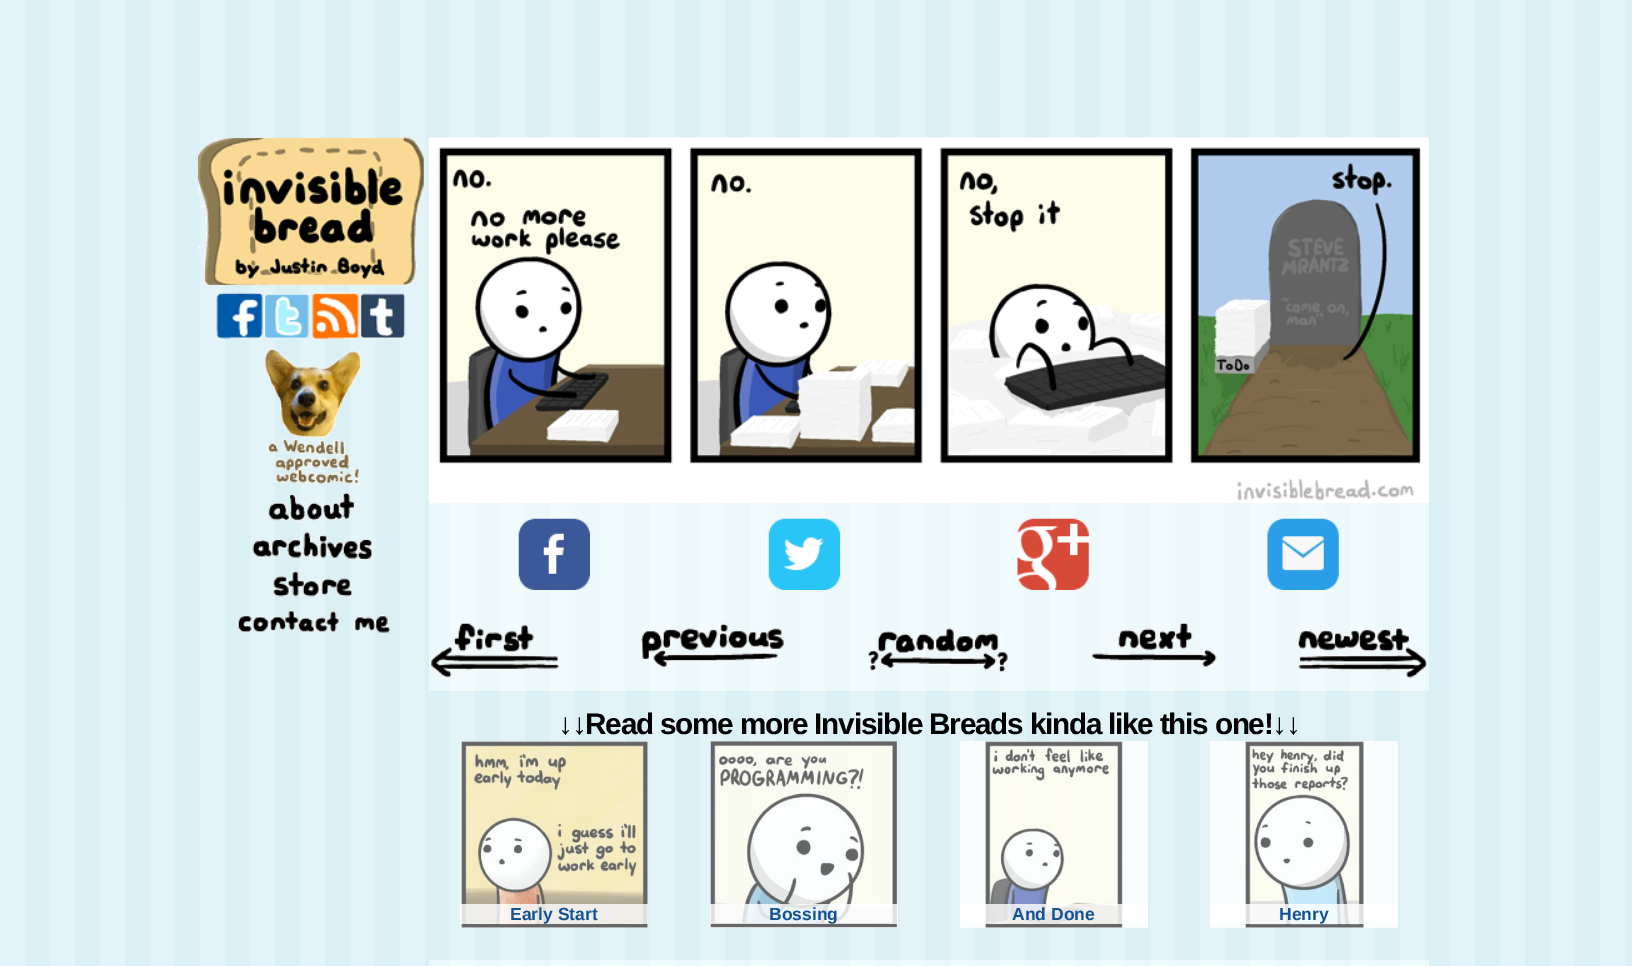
%!PS
<< /PageSize [1632 966] /PageUsesTransparency true >> setpagedevice
/alpha { dup .setfillconstantalpha .setstrokeconstantalpha } def
/picture { 5 dict begin { /h /w /y /x /name } { exch def } forall
  gsave x y translate w h scale
  w h 8 [w 0 0 h 0 0] name (r) file false 3 colorimage grestore end } def
0 .pushpdf14devicefilter
0 966 translate 1 -1 scale
4 setmiterlimit
0.89 0.957 0.976 setrgbcolor
0 0 1632 966 rectfill
(img1.rgb) 25 0 1607 966 picture
(img2.rgb) 198 138 206 147 picture
(img3.rgb) 403 137 21 148 picture
(img4.rgb) 216 292 47 47 picture
(img5.rgb) 263 293 46 46 picture
(img6.rgb) 312 292 47 47 picture
(img7.rgb) 360 293 46 46 picture
(img8.rgb) 267 492 87 31 picture
(img9.rgb) 252 532 121 28 picture
(img10.rgb) 273 571 80 26 picture
(img11.rgb) 237 610 154 23 picture
(img12.rgb) 264 348 98 136 picture
1 setgray
newpath 442 138 moveto 1416 138 lineto 1423 138 1429 144 1429 151 curveto 1429 503 lineto 429 503 lineto 429 151 lineto 429 144 435 138 442 138 curveto closepath fill
(img13.rgb) 428 137 1001 366 picture
0.5 alpha
429 503 1000 107 rectfill
1 alpha
(img14.rgb) 518 518 72 72 picture
(img15.rgb) 768 518 72 72 picture
(img16.rgb) 1017 518 72 72 picture
(img17.rgb) 1267 518 72 72 picture
0.5 alpha
429 610 1000 81 rectfill
1 alpha
(img18.rgb) 431 623 128 55 picture
(img19.rgb) 641 623 143 45 picture
(img20.rgb) 868 628 140 44 picture
(img21.rgb) 1092 623 125 45 picture
(img22.rgb) 1298 627 129 51 picture
/LiberationSans-Bold [29.75 0 0 -29.75 0 0] selectfont
0 setgray
558 734 moveto -1.25 0 (↓↓Read some more Invisible Breads kinda like this one!↓↓) ashow
0.8 alpha
1 setgray
460 741 188 187 rectfill
1 alpha
(img23.rgb) 461 741 187 187 picture
0.8 alpha
460 904 188 20 rectfill
/LiberationSans-Bold [17.5 0 0 -17.5 0 0] selectfont
1 alpha
0.067 0.322 0.58 setrgbcolor
510 920 moveto (Early Start) show
0.8 alpha
1 setgray
710 741 188 187 rectfill
1 alpha
(img24.rgb) 710 741 188 187 picture
0.8 alpha
710 904 188 20 rectfill
1 alpha
0.067 0.322 0.58 setrgbcolor
769 920 moveto (Bossing) show
0.8 alpha
1 setgray
960 741 188 187 rectfill
1 alpha
(img25.rgb) 985 741 138 187 picture
0.8 alpha
960 904 188 20 rectfill
1 alpha
0.067 0.322 0.58 setrgbcolor
1012 920 moveto (And Done) show
0.8 alpha
1 setgray
1210 741 188 187 rectfill
1 alpha
(img26.rgb) 1245 741 119 187 picture
0.8 alpha
1210 904 188 20 rectfill
1 alpha
0.067 0.322 0.58 setrgbcolor
1279 920 moveto (Henry) show
0.5 alpha
1 setgray
429 960 1000 6 rectfill
.poppdf14devicefilter showpage
